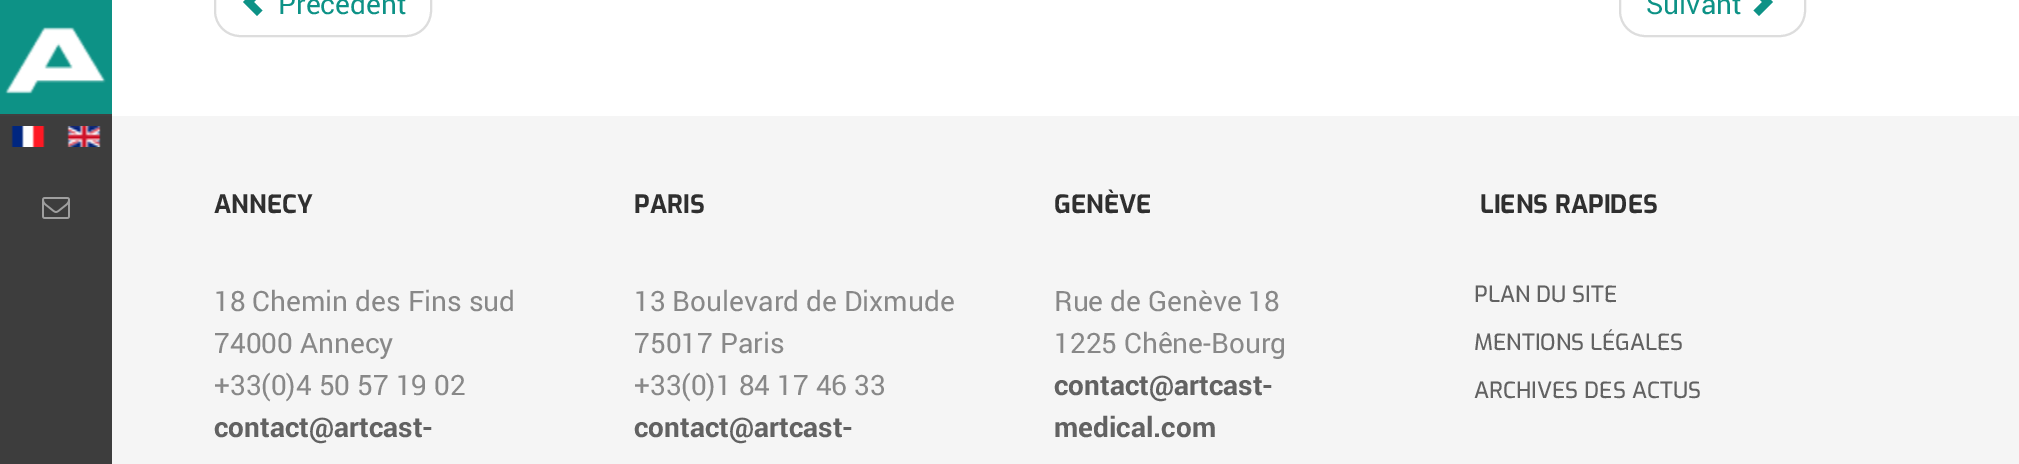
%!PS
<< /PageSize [2019 464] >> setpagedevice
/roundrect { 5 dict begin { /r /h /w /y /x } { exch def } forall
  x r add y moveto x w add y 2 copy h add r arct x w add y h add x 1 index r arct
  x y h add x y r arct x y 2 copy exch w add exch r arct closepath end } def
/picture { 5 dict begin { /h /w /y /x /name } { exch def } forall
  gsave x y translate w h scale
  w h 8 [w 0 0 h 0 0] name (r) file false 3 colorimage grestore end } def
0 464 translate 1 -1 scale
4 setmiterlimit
1 setgray
0 0 2019 464 rectfill
0.251 setgray
0 114 112 2 rectfill
0.051 0.573 0.525 setrgbcolor
0 0 112 114 rectfill
(img1.rgb) 5 27 101 67 picture
0.239 setgray
0 116 112 348 rectfill
(img2.rgb) 11 126 34 21 picture
(img3.rgb) 67 126 34 21 picture
(img4.rgb) 42 197 28 22 picture
0.867 setgray
2 setlinewidth
215 -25 216 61 25 roundrect stroke
0.051 0.573 0.525 setrgbcolor
newpath 257 16 moveto 243 2 lineto 257 -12 lineto 262.5 -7 lineto 254 2 lineto 262.5 10.5 lineto closepath fill
/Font-Regular [28 0 0 -28 0 0] selectfont
278 14 moveto (Précédent) show
0.867 setgray
1620 -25 185 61 25 roundrect stroke
0.051 0.573 0.525 setrgbcolor
1646 14 moveto (Suivant) show
newpath 1759 -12 moveto 1773 2 lineto 1759 16 lineto 1753.5 10.5 lineto 1762 2 lineto 1753.5 -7 lineto closepath fill
0.961 setgray
112 116 1907 348 rectfill
/Exo-Bold [25.25 0 0 -25.25 0 0] selectfont
0.184 setgray
214 213 moveto (ANNECY) show
/Font-Regular [28 0 0 -28 0 0] selectfont
0.533 setgray
214 311 moveto (18 Chemin des Fins sud) show
214 353 moveto (74000 Annecy) show
214 395 moveto (+33\(0\)4 50 57 19 02) show
/Font-Bold [28 0 0 -28 0 0] selectfont
0.384 setgray
214 437 moveto (contact@artcast-) show
/Exo-Bold [25.25 0 0 -25.25 0 0] selectfont
0.184 setgray
634 213 moveto (PARIS) show
/Font-Regular [28 0 0 -28 0 0] selectfont
0.533 setgray
634 311 moveto (13 Boulevard de Dixmude) show
634 353 moveto (75017 Paris) show
634 395 moveto (+33\(0\)1 84 17 46 33) show
/Font-Bold [28 0 0 -28 0 0] selectfont
0.384 setgray
634 437 moveto (contact@artcast-) show
/Exo-Bold [25.25 0 0 -25.25 0 0] selectfont
0.184 setgray
1054 213 moveto (GENÈVE) show
/Font-Regular [28 0 0 -28 0 0] selectfont
0.533 setgray
1054 311 moveto (Rue de Genève 18) show
1054 353 moveto (1225 Chêne-Bourg) show
/Font-Bold [28 0 0 -28 0 0] selectfont
0.384 setgray
1054 395 moveto (contact@artcast-) show
1054 437 moveto (medical.com) show
/Exo-Bold [25.25 0 0 -25.25 0 0] selectfont
0.184 setgray
1480 213 moveto (LIENS RAPIDES) show
/Exo-Medium [22.4 0 0 -22.4 0 0] selectfont
0.384 setgray
1474 302 moveto (PLAN DU SITE) show
1474 350 moveto (MENTIONS LÉGALES) show
1474 398 moveto (ARCHIVES DES ACTUS) show
showpage
